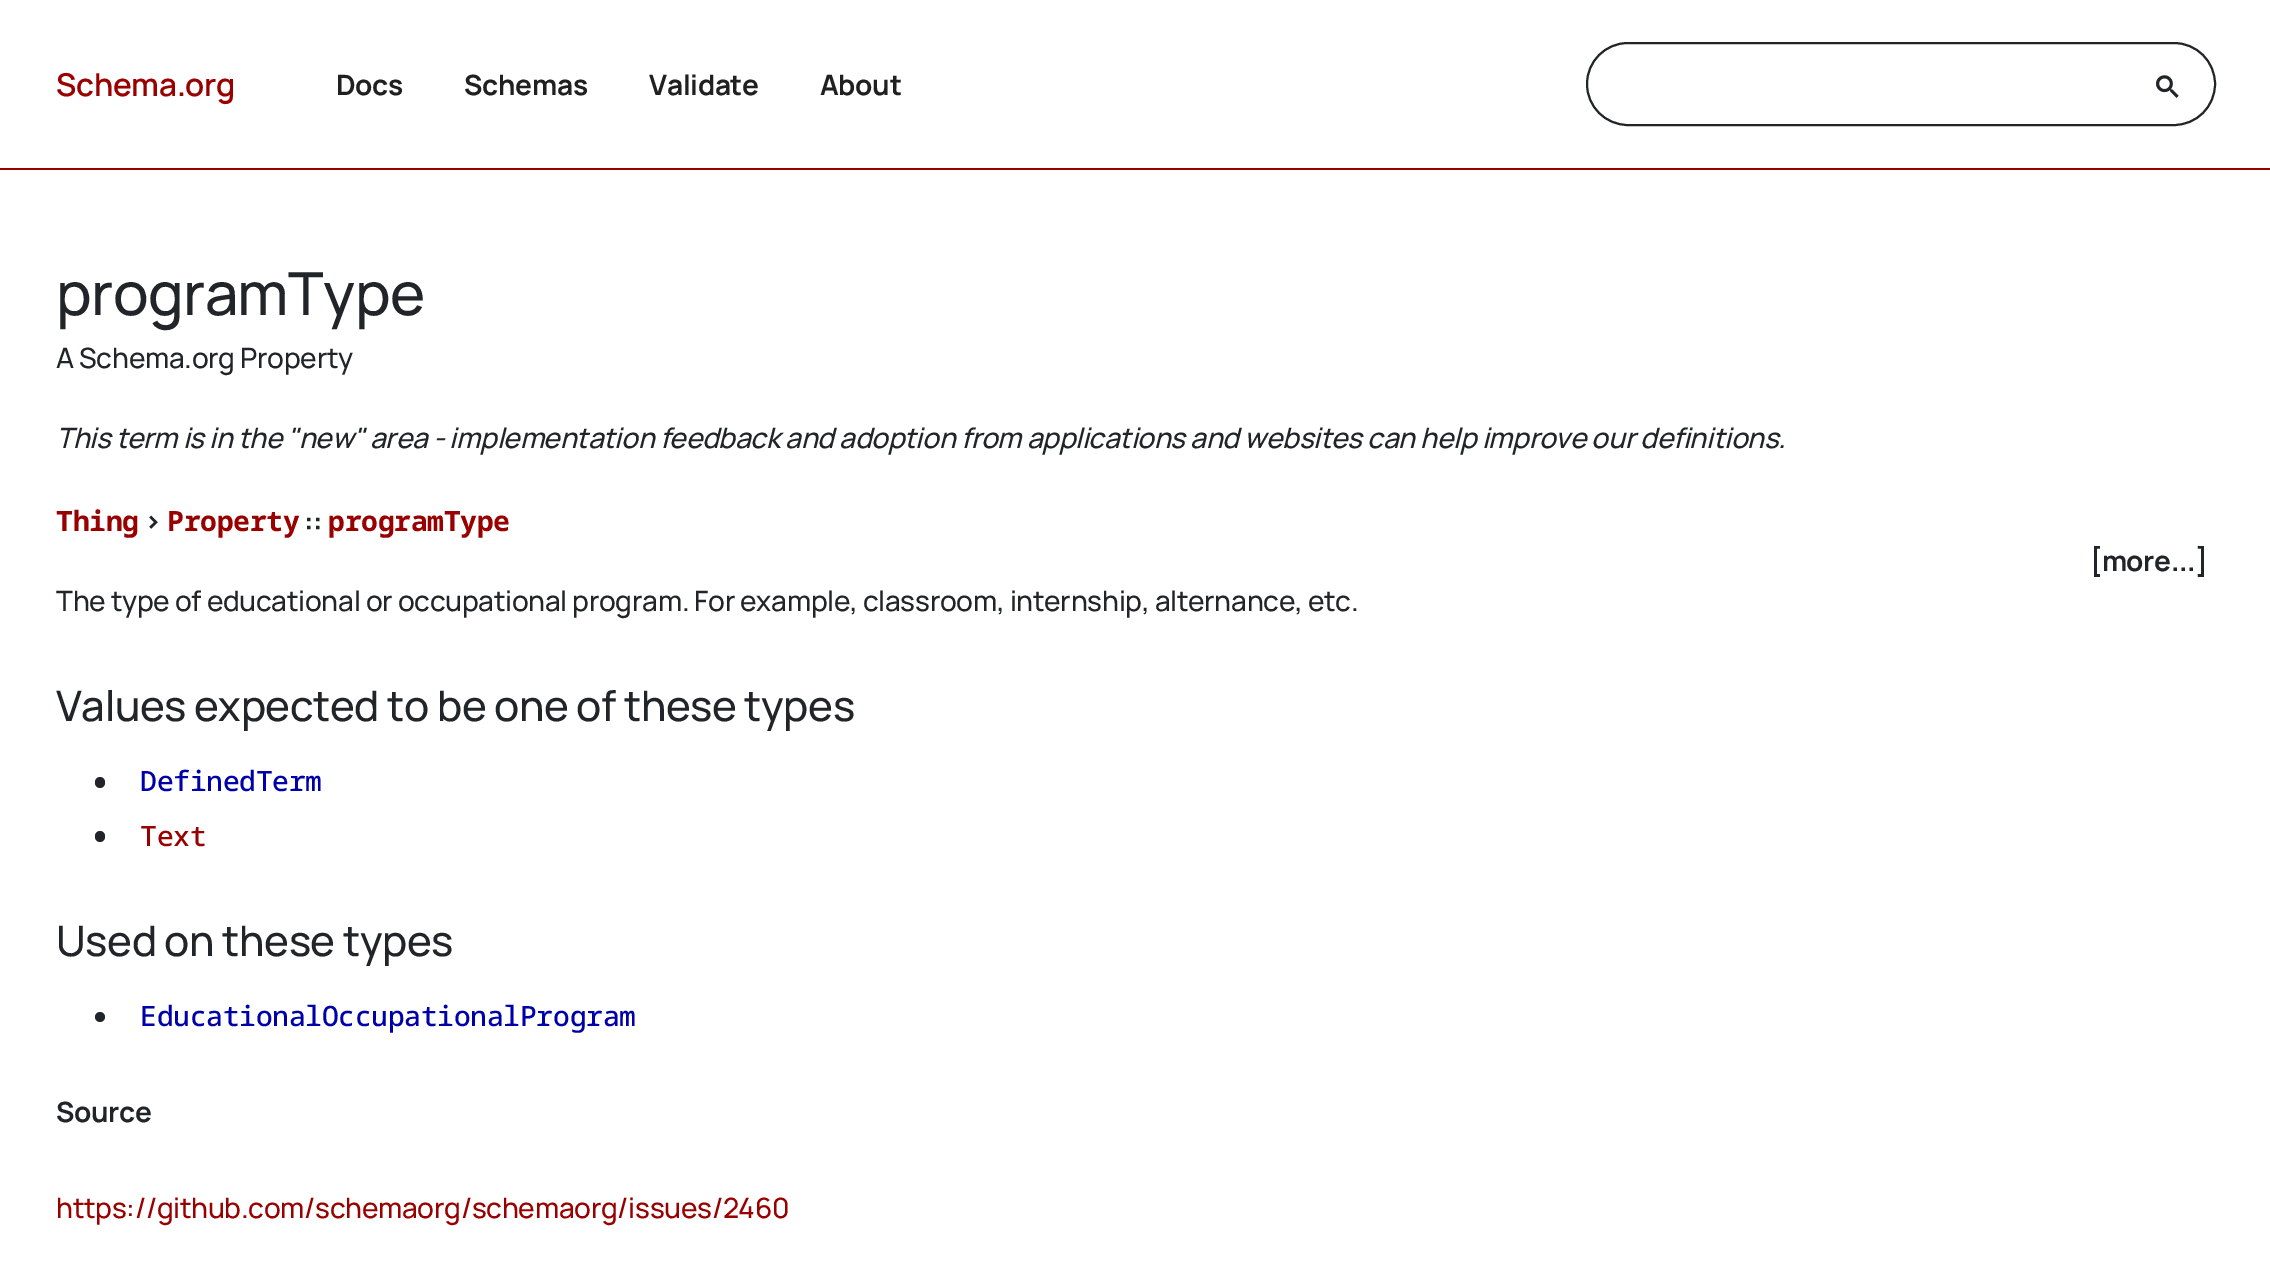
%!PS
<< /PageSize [2270 1266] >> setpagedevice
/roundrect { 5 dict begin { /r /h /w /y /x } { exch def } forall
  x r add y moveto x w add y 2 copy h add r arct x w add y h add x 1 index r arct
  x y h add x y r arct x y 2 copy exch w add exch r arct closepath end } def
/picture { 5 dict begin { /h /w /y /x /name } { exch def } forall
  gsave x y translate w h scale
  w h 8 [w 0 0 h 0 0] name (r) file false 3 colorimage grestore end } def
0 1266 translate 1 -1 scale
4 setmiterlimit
1 setgray
0 0 2270 1266 rectfill
/Manrope-SemiBold [31.5 0 0 -31.5 0 0] selectfont
0.6 0 0 setrgbcolor
56 96 moveto -0.25 0 (Schema.org) ashow
/Manrope-Bold [28 0 0 -28 0 0] selectfont
0.125 setgray
336 95 moveto -0.28 0 (Docs) ashow
464 95 moveto -0.28 0 (Schemas) ashow
649 95 moveto -0.28 0 (Validate) ashow
820 95 moveto -0.28 0 (About) ashow
0.129 0.145 0.161 setrgbcolor
2 setlinewidth
1587 43 628 82 41 roundrect stroke
(img1.rgb) 2156 75 23 23 picture
0.6 0 0 setrgbcolor
0 168 2270 2 rectfill
/Manrope-Medium [59.5 0 0 -59.5 0 0] selectfont
0.129 0.145 0.161 setrgbcolor
56 315 moveto -0.6 0 (programType) ashow
/Manrope-Medium [28 0 0 -28 0 0] selectfont
56 368 moveto -0.28 0 (A Schema.org Property) ashow
/Manrope-MediumItalic [28 0 0 -28 0 0] selectfont
56 448 moveto -0.28 0 (This term is in the "new" area - implementation feedback and adoption from applications and websites can help improve our definitions.) ashow
/NotoSansMono-Bold [28 0 0 -28 0 0] selectfont
0.6 0 0 setrgbcolor
56 531 moveto -0.28 0 (Thing) ashow
/Manrope-Bold [28 0 0 -28 0 0] selectfont
0.129 0.145 0.161 setrgbcolor
144 531 moveto -0.28 0 (>) ashow
/NotoSansMono-Bold [28 0 0 -28 0 0] selectfont
0.6 0 0 setrgbcolor
167 531 moveto -0.28 0 (Property) ashow
/Manrope-Bold [28 0 0 -28 0 0] selectfont
0.129 0.145 0.161 setrgbcolor
304 531 moveto -0.28 0 (::) ashow
/NotoSansMono-Bold [28 0 0 -28 0 0] selectfont
0.6 0 0 setrgbcolor
328 531 moveto -0.28 0 (programType) ashow
/Manrope-Bold [28 0 0 -28 0 0] selectfont
0.129 0.145 0.161 setrgbcolor
2090 571 moveto -0.28 0 ([more...]) ashow
/Manrope-Medium [28 0 0 -28 0 0] selectfont
56 611 moveto -0.28 0 (The type of educational or occupational program. For example, classroom, internship, alternance, etc.) ashow
/Manrope-Medium [42 0 0 -42 0 0] selectfont
56 721 moveto -0.4 0 (Values expected to be one of these types) ashow
95 777 10 11 5 roundrect fill
/NotoSansMono-Medium [28 0 0 -28 0 0] selectfont
0 0 0.667 setrgbcolor
140 791 moveto -0.28 0 (DefinedTerm) ashow
0.129 0.145 0.161 setrgbcolor
95 831 10 11 5 roundrect fill
0.6 0 0 setrgbcolor
140 846 moveto -0.28 0 (Text) ashow
/Manrope-Medium [42 0 0 -42 0 0] selectfont
0.129 0.145 0.161 setrgbcolor
56 956 moveto -0.4 0 (Used on these types) ashow
newpath 100 1017 5 0 360 arc closepath fill
/NotoSansMono-Medium [28 0 0 -28 0 0] selectfont
0 0 0.667 setrgbcolor
140 1026 moveto -0.28 0 (EducationalOccupationalProgram) ashow
/Manrope-Bold [28 0 0 -28 0 0] selectfont
0.129 0.145 0.161 setrgbcolor
56 1122 moveto -0.28 0 (Source) ashow
/Manrope-Medium [28 0 0 -28 0 0] selectfont
0.6 0 0 setrgbcolor
56 1218 moveto -0.28 0 (https://github.com/schemaorg/schemaorg/issues/2460) ashow
showpage
